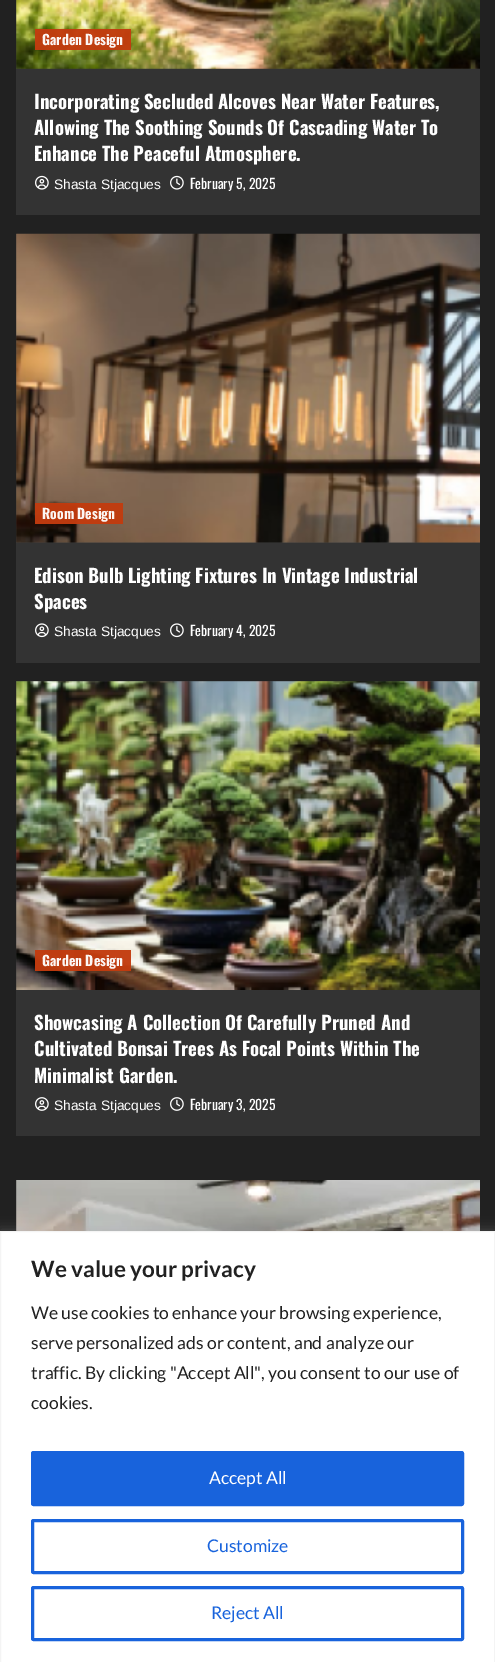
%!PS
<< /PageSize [495 1662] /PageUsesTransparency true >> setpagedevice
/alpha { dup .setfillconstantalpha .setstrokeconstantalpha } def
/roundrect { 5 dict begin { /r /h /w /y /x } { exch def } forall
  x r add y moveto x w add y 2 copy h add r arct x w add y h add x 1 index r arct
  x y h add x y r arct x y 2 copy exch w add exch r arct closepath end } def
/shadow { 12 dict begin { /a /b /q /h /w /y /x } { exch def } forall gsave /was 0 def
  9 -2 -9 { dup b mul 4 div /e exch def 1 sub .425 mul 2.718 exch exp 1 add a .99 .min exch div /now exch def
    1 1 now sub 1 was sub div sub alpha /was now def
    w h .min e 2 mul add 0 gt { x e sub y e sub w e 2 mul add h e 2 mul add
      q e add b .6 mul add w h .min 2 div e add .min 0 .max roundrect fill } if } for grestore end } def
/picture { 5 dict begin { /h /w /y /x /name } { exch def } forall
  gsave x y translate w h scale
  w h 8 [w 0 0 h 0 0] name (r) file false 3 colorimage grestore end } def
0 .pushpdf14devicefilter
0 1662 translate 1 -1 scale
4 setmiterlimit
0.129 setgray
0 0 495 1662 rectfill
0.2 setgray
16 69 464 146 rectfill
0.239 setgray
16 0 464 69 rectfill
(img1.rgb) 16 0 464 69 picture
0.96 alpha
0.761 0.231 0.055 setrgbcolor
35 29 96 21 rectfill
/Oswald-Bold [13.75 0 0 -13.75 0 0] selectfont
1 alpha
0.988 0.969 0.961 setrgbcolor
42 45 moveto (Garden Design) show
/Oswald-Bold [18.75 0 0 -18.75 0 0] selectfont
1 setgray
34 109 moveto (Incorporating Secluded Alcoves Near Water Features,) show
34 135 moveto (Allowing The Soothing Sounds Of Cascading Water To) show
34 161 moveto (Enhance The Peaceful Atmosphere.) show
(img2.rgb) 35 175 14 15 picture
/LiberationSans-Regular [13.75 0 0 -13.75 0 0] selectfont
54 189 moveto (Shasta Stjacques) show
(img3.rgb) 170 175 14 15 picture
/Oswald-Regular [13.75 0 0 -13.75 0 0] selectfont
190 189 moveto (February 5, 2025) show
0.2 setgray
16 543 464 120 rectfill
0.239 setgray
16 234 464 309 rectfill
(img4.rgb) 16 233 464 310 picture
0.96 alpha
0.761 0.231 0.055 setrgbcolor
35 503 88 21 rectfill
/Oswald-Bold [13.75 0 0 -13.75 0 0] selectfont
1 alpha
0.988 0.969 0.961 setrgbcolor
42 519 moveto (Room Design) show
/Oswald-Bold [18.75 0 0 -18.75 0 0] selectfont
1 setgray
34 583 moveto (Edison Bulb Lighting Fixtures In Vintage Industrial) show
34 609 moveto (Spaces) show
(img5.rgb) 35 623 14 15 picture
/LiberationSans-Regular [13.75 0 0 -13.75 0 0] selectfont
54 636 moveto (Shasta Stjacques) show
(img6.rgb) 170 623 14 15 picture
/Oswald-Regular [13.75 0 0 -13.75 0 0] selectfont
190 636 moveto (February 4, 2025) show
0.2 setgray
16 990 464 146 rectfill
0.239 setgray
16 681 464 309 rectfill
(img7.rgb) 16 681 464 309 picture
0.96 alpha
0.761 0.231 0.055 setrgbcolor
35 950 96 21 rectfill
/Oswald-Bold [13.75 0 0 -13.75 0 0] selectfont
1 alpha
0.988 0.969 0.961 setrgbcolor
42 966 moveto (Garden Design) show
/Oswald-Bold [18.75 0 0 -18.75 0 0] selectfont
1 setgray
34 1030 moveto (Showcasing A Collection Of Carefully Pruned And) show
34 1056 moveto (Cultivated Bonsai Trees As Focal Points Within The) show
34 1083 moveto (Minimalist Garden.) show
(img8.rgb) 35 1097 14 14 picture
/LiberationSans-Regular [13.75 0 0 -13.75 0 0] selectfont
54 1110 moveto (Shasta Stjacques) show
(img9.rgb) 170 1097 14 14 picture
/Oswald-Regular [13.75 0 0 -13.75 0 0] selectfont
190 1110 moveto (February 3, 2025) show
(img10.rgb) 16 1180 464 51 picture
0.675 0.671 0.671 setrgbcolor
0 1230 495 431 0 6 0.3 shadow
1 setgray
newpath 0.5 1231.5 moveto 494.5 1231.5 lineto 494.5 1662.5 lineto 0.5 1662.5 lineto closepath gsave fill grestore
0.957 setgray
stroke
/Lato-Bold [22.5 0 0 -22.5 0 0] selectfont
0.129 setgray
31 1277 moveto (We value your privacy) show
/Lato-Regular [17.5 0 0 -17.5 0 0] selectfont
31 1319 moveto (We use cookies to enhance your browsing experience,) show
31 1349 moveto (serve personalized ads or content, and analyze our) show
31 1379 moveto (traffic. By clicking "Accept All", you consent to our use of) show
31 1409 moveto (cookies.) show
0.094 0.388 0.863 setrgbcolor
32.5 1452.5 430 52 1 roundrect gsave fill grestore
3 setlinewidth
stroke
1 setgray
209 1484 moveto (Accept All) show
0.094 0.388 0.863 setrgbcolor
32.5 1520.5 430 52 1 roundrect stroke
207 1552 moveto (Customize) show
32.5 1587.5 430 52 1 roundrect stroke
211 1619 moveto (Reject All) show
.poppdf14devicefilter showpage
